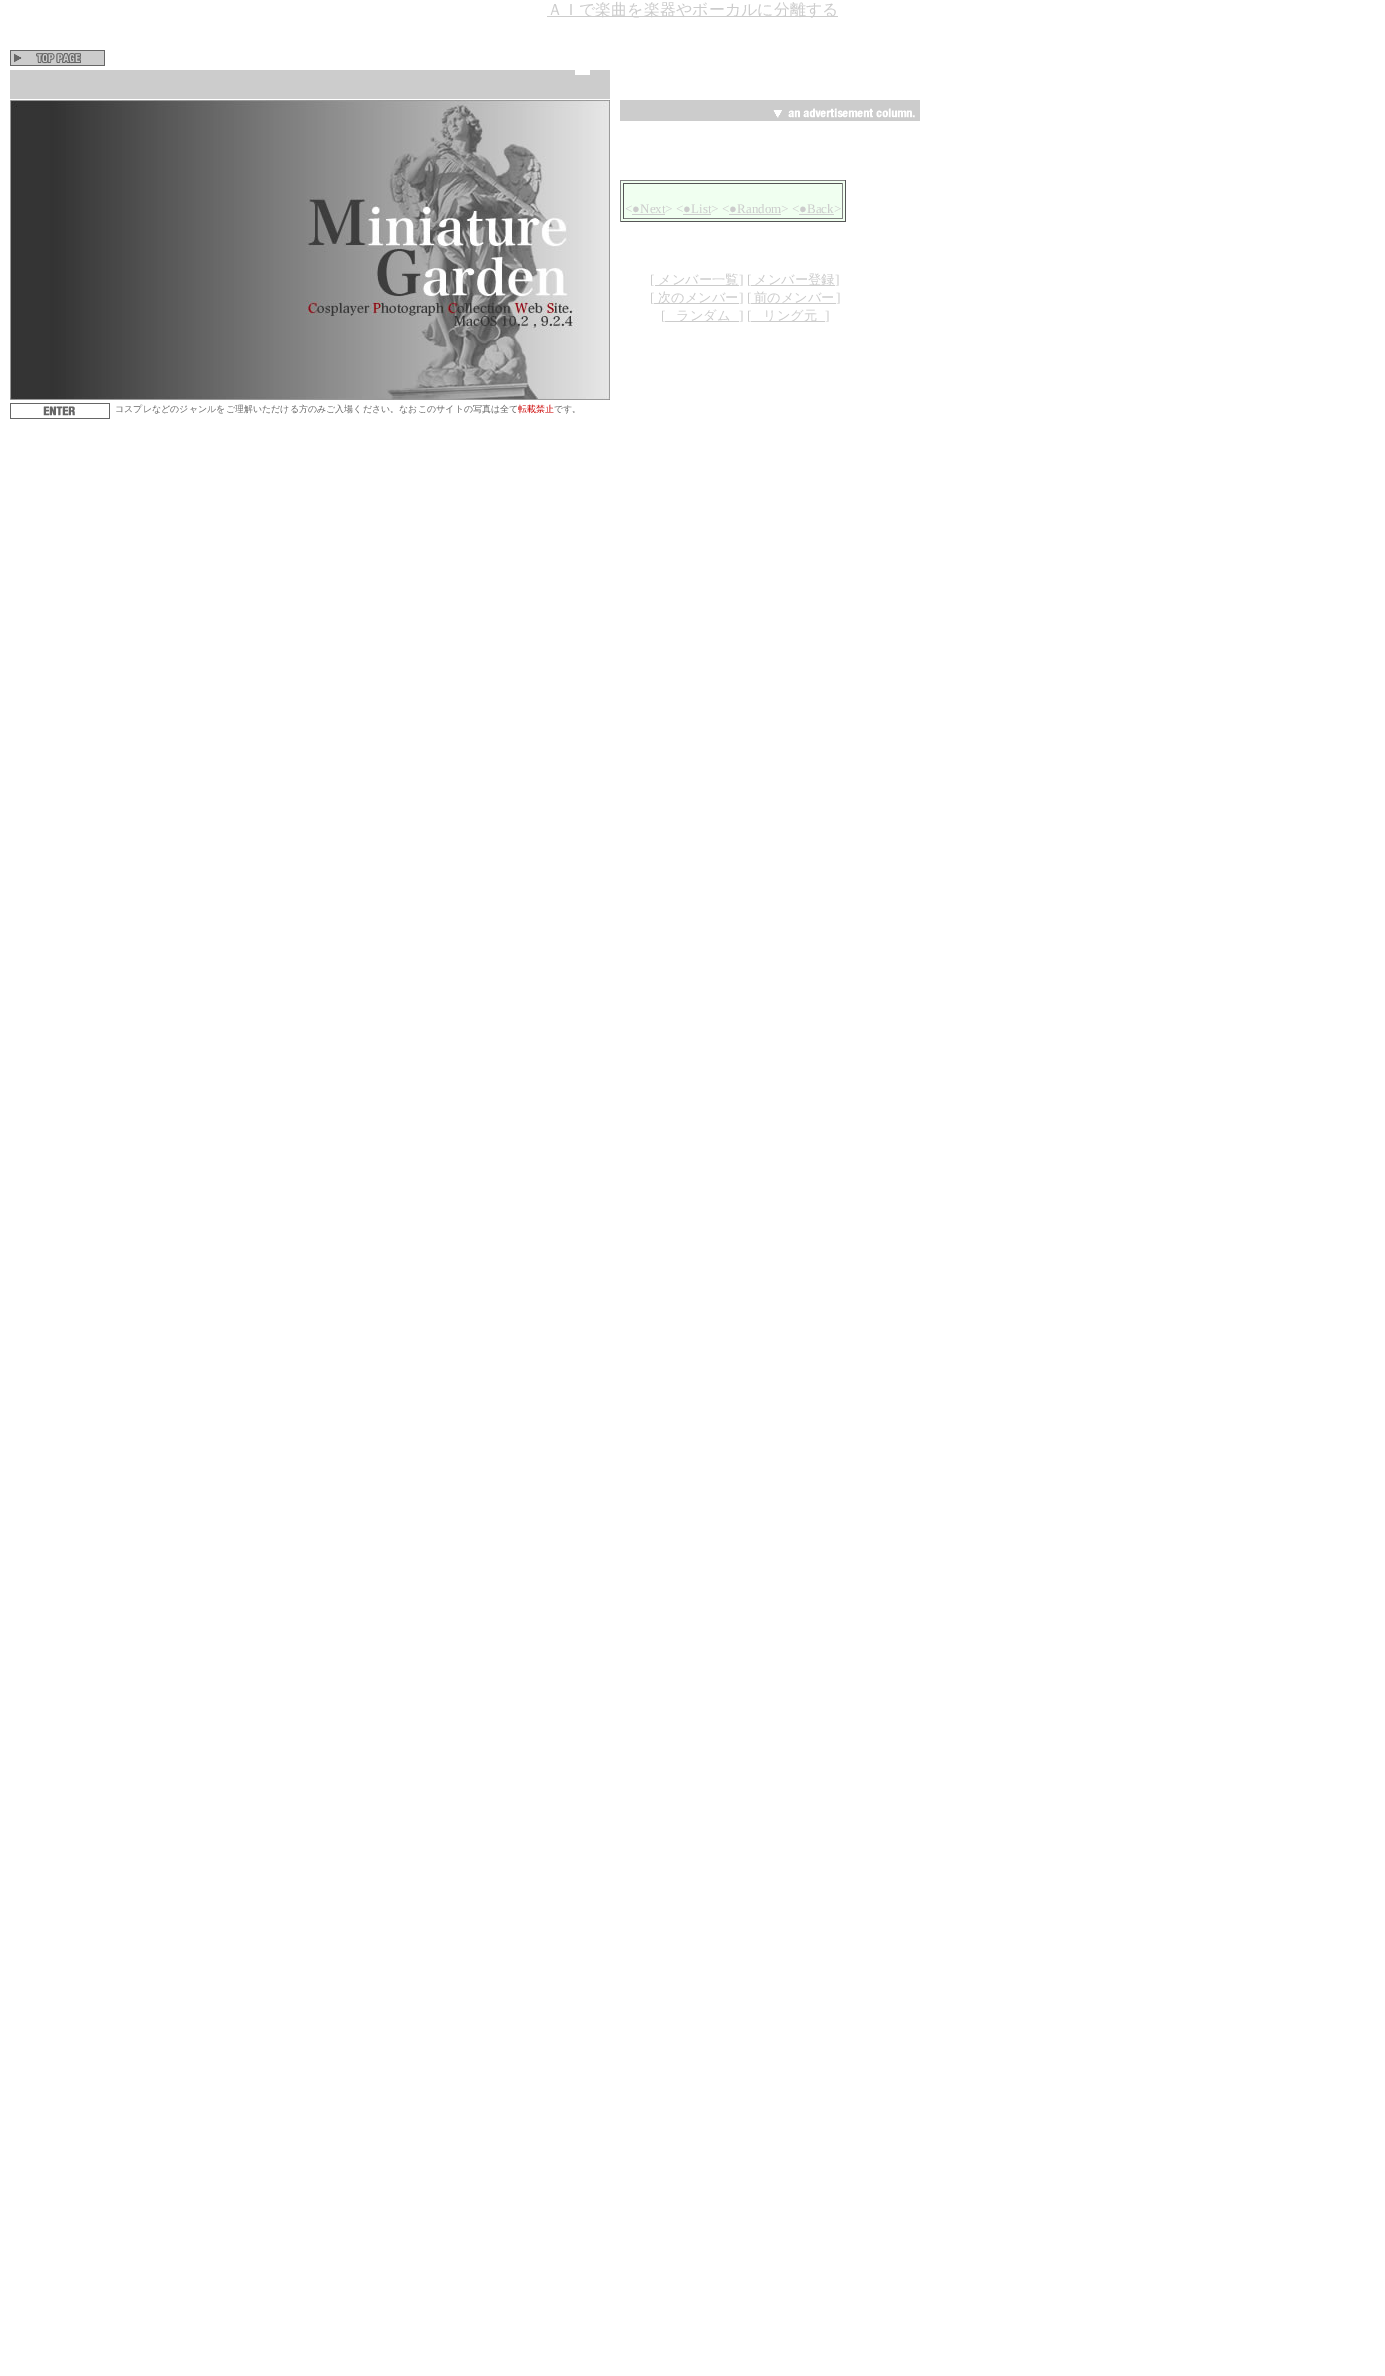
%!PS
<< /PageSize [1385 2376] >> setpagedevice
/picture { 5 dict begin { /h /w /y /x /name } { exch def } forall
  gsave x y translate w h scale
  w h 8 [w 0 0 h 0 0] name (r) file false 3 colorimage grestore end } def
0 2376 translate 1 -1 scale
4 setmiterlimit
1 setgray
0 0 1385 2376 rectfill
0.8 setgray
547 16 291 1 rectfill
/WenQuanYiZenHei-Medium [16 0 0 -16 0 0] selectfont
547 15 moveto (ＡＩで楽曲を楽器やボーカルに分離する) show
(img1.rgb) 10 50 95 16 picture
(img2.rgb) 10 70 600 29 picture
(img3.rgb) 10 100 600 300 picture
(img4.rgb) 620 100 300 21 picture
0.941 1 0.941 setrgbcolor
621 181 224 40 rectfill
0.502 setgray
620 180 226 1 rectfill
0.333 setgray
845 180 1 42 rectfill
620 221 226 1 rectfill
0.502 setgray
620 180 1 42 rectfill
0.333 setgray
623 183 220 1 rectfill
0.502 setgray
842 183 1 36 rectfill
623 218 220 1 rectfill
0.333 setgray
623 183 1 36 rectfill
/LiberationSerif-Regular [13 0 0 -13 0 0] selectfont
0.8 setgray
625 213 moveto (<●Next> <●List> <●Random> <●Back>) show
632 214 33 1 rectfill
683 214 28 1 rectfill
729 214 52 1 rectfill
799 214 35 1 rectfill
/LiberationSerif-Regular [13.25 0 0 -13.25 0 0] selectfont
650 284 moveto ([) show
655 285 84 1 rectfill
/WenQuanYiZenHei-Medium [13.25 0 0 -13.25 0 0] selectfont
658 284 moveto (メンバー一覧) show
/LiberationSerif-Regular [13.25 0 0 -13.25 0 0] selectfont
739 284 moveto (] [) show
751 285 84 1 rectfill
/WenQuanYiZenHei-Medium [13.25 0 0 -13.25 0 0] selectfont
754 284 moveto (メンバー登録) show
/LiberationSerif-Regular [13.25 0 0 -13.25 0 0] selectfont
835 284 moveto (]) show
650 302 moveto ([) show
654 303 85 1 rectfill
/WenQuanYiZenHei-Medium [13.25 0 0 -13.25 0 0] selectfont
658 302 moveto (次のメンバー) show
/LiberationSerif-Regular [13.25 0 0 -13.25 0 0] selectfont
739 302 moveto (] [) show
751 303 85 1 rectfill
/WenQuanYiZenHei-Medium [13.25 0 0 -13.25 0 0] selectfont
754 302 moveto (前のメンバー) show
/LiberationSerif-Regular [13.25 0 0 -13.25 0 0] selectfont
836 302 moveto (]) show
661 320 moveto ([) show
665 321 74 1 rectfill
/WenQuanYiZenHei-Medium [13.25 0 0 -13.25 0 0] selectfont
676 320 moveto (ランダム) show
/LiberationSerif-Regular [13.25 0 0 -13.25 0 0] selectfont
739 320 moveto (] [) show
751 321 74 1 rectfill
/WenQuanYiZenHei-Medium [13.25 0 0 -13.25 0 0] selectfont
763 320 moveto (リング元) show
/LiberationSerif-Regular [13.25 0 0 -13.25 0 0] selectfont
825 320 moveto (]) show
(img5.rgb) 10 403 100 16 picture
/WenQuanYiZenHei-Medium [9 0 0 -9 0 0] selectfont
0.4 setgray
115 412 moveto (コスプレなどのジャンルをご理解いただける方のみご入場ください。なおこのサイトの写真は全て) show
0.8 0 0 setrgbcolor
518 412 moveto (転載禁止) show
0.4 setgray
554 412 moveto (です。) show
showpage
